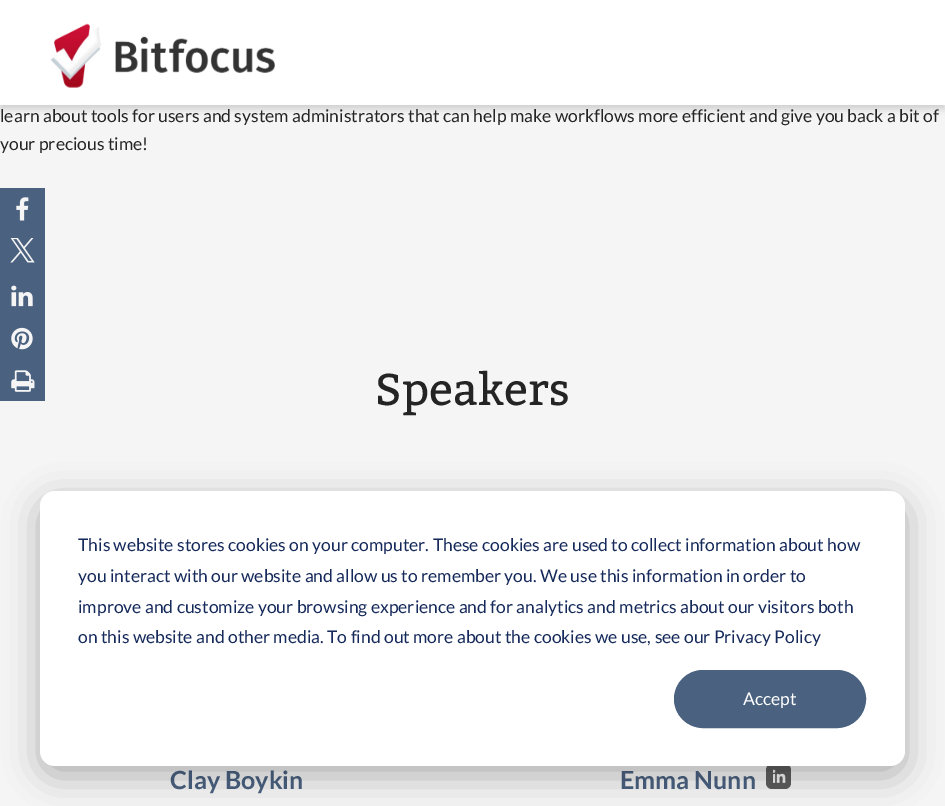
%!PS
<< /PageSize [945 806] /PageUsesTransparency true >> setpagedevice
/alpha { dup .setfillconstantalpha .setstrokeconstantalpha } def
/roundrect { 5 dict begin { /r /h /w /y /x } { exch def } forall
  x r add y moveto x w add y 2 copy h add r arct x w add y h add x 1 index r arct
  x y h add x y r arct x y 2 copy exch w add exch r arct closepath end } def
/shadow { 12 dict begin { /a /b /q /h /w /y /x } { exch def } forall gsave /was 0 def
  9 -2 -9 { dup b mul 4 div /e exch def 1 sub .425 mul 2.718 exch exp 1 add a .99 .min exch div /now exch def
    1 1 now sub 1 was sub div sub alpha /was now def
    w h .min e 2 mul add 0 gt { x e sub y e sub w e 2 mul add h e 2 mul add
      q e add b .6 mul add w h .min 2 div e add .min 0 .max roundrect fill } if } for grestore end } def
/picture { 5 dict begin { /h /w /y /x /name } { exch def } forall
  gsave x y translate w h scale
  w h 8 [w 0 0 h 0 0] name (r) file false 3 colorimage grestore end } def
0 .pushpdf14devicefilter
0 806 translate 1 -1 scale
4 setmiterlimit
0.961 setgray
0 0 945 806 rectfill
0 setgray
0 4 945 105 0 4 0.16 shadow
1 setgray
0 0 945 105 rectfill
(img1.rgb) 50 23 225 65 picture
/Lato-Regular [17.5 0 0 -17.5 0 0] selectfont
0.141 setgray
0 122 moveto (learn about tools for users and system administrators that can help make workflows more efficient and give you back a bit of) show
0 150 moveto (your precious time!) show
0.29 0.38 0.502 setrgbcolor
0 188 45 213 rectfill
(img2.rgb) 16 197 13 24 picture
(img3.rgb) 10 238 25 25 picture
(img4.rgb) 11 285 22 22 picture
(img5.rgb) 11 327 22 23 picture
(img6.rgb) 11 370 24 22 picture
/Kadwa-Regular [44.5 0 0 -44.5 0 0] selectfont
0.141 setgray
375 405 moveto (Speakers) show
/Lato-Bold [25 0 0 -25 0 0] selectfont
0.29 0.38 0.502 setrgbcolor
170 789 moveto (Clay Boykin) show
620 789 moveto (Emma Nunn) show
0.365 setgray
766 764 25 25 6 roundrect fill
(img7.rgb) 773 769 13 14 picture
0 setgray
40 501 865 275 15 17.5 0.28 shadow
1 setgray
40 491 865 275 15 roundrect fill
/Lato-Regular [17.5 0 0 -17.5 0 0] selectfont
0.082 0.161 0.353 setrgbcolor
78 551 moveto (This website stores cookies on your computer. These cookies are used to collect information about how) show
78 582 moveto (you interact with our website and allow us to remember you. We use this information in order to) show
78 613 moveto (improve and customize your browsing experience and for analytics and metrics about our visitors both) show
78 643 moveto (on this website and other media. To find out more about the cookies we use, see our Privacy Policy) show
0.29 0.38 0.502 setrgbcolor
674.5 670.5 191 57 28.5 roundrect gsave fill grestore
stroke
1 setgray
743 705 moveto (Accept) show
.poppdf14devicefilter showpage
